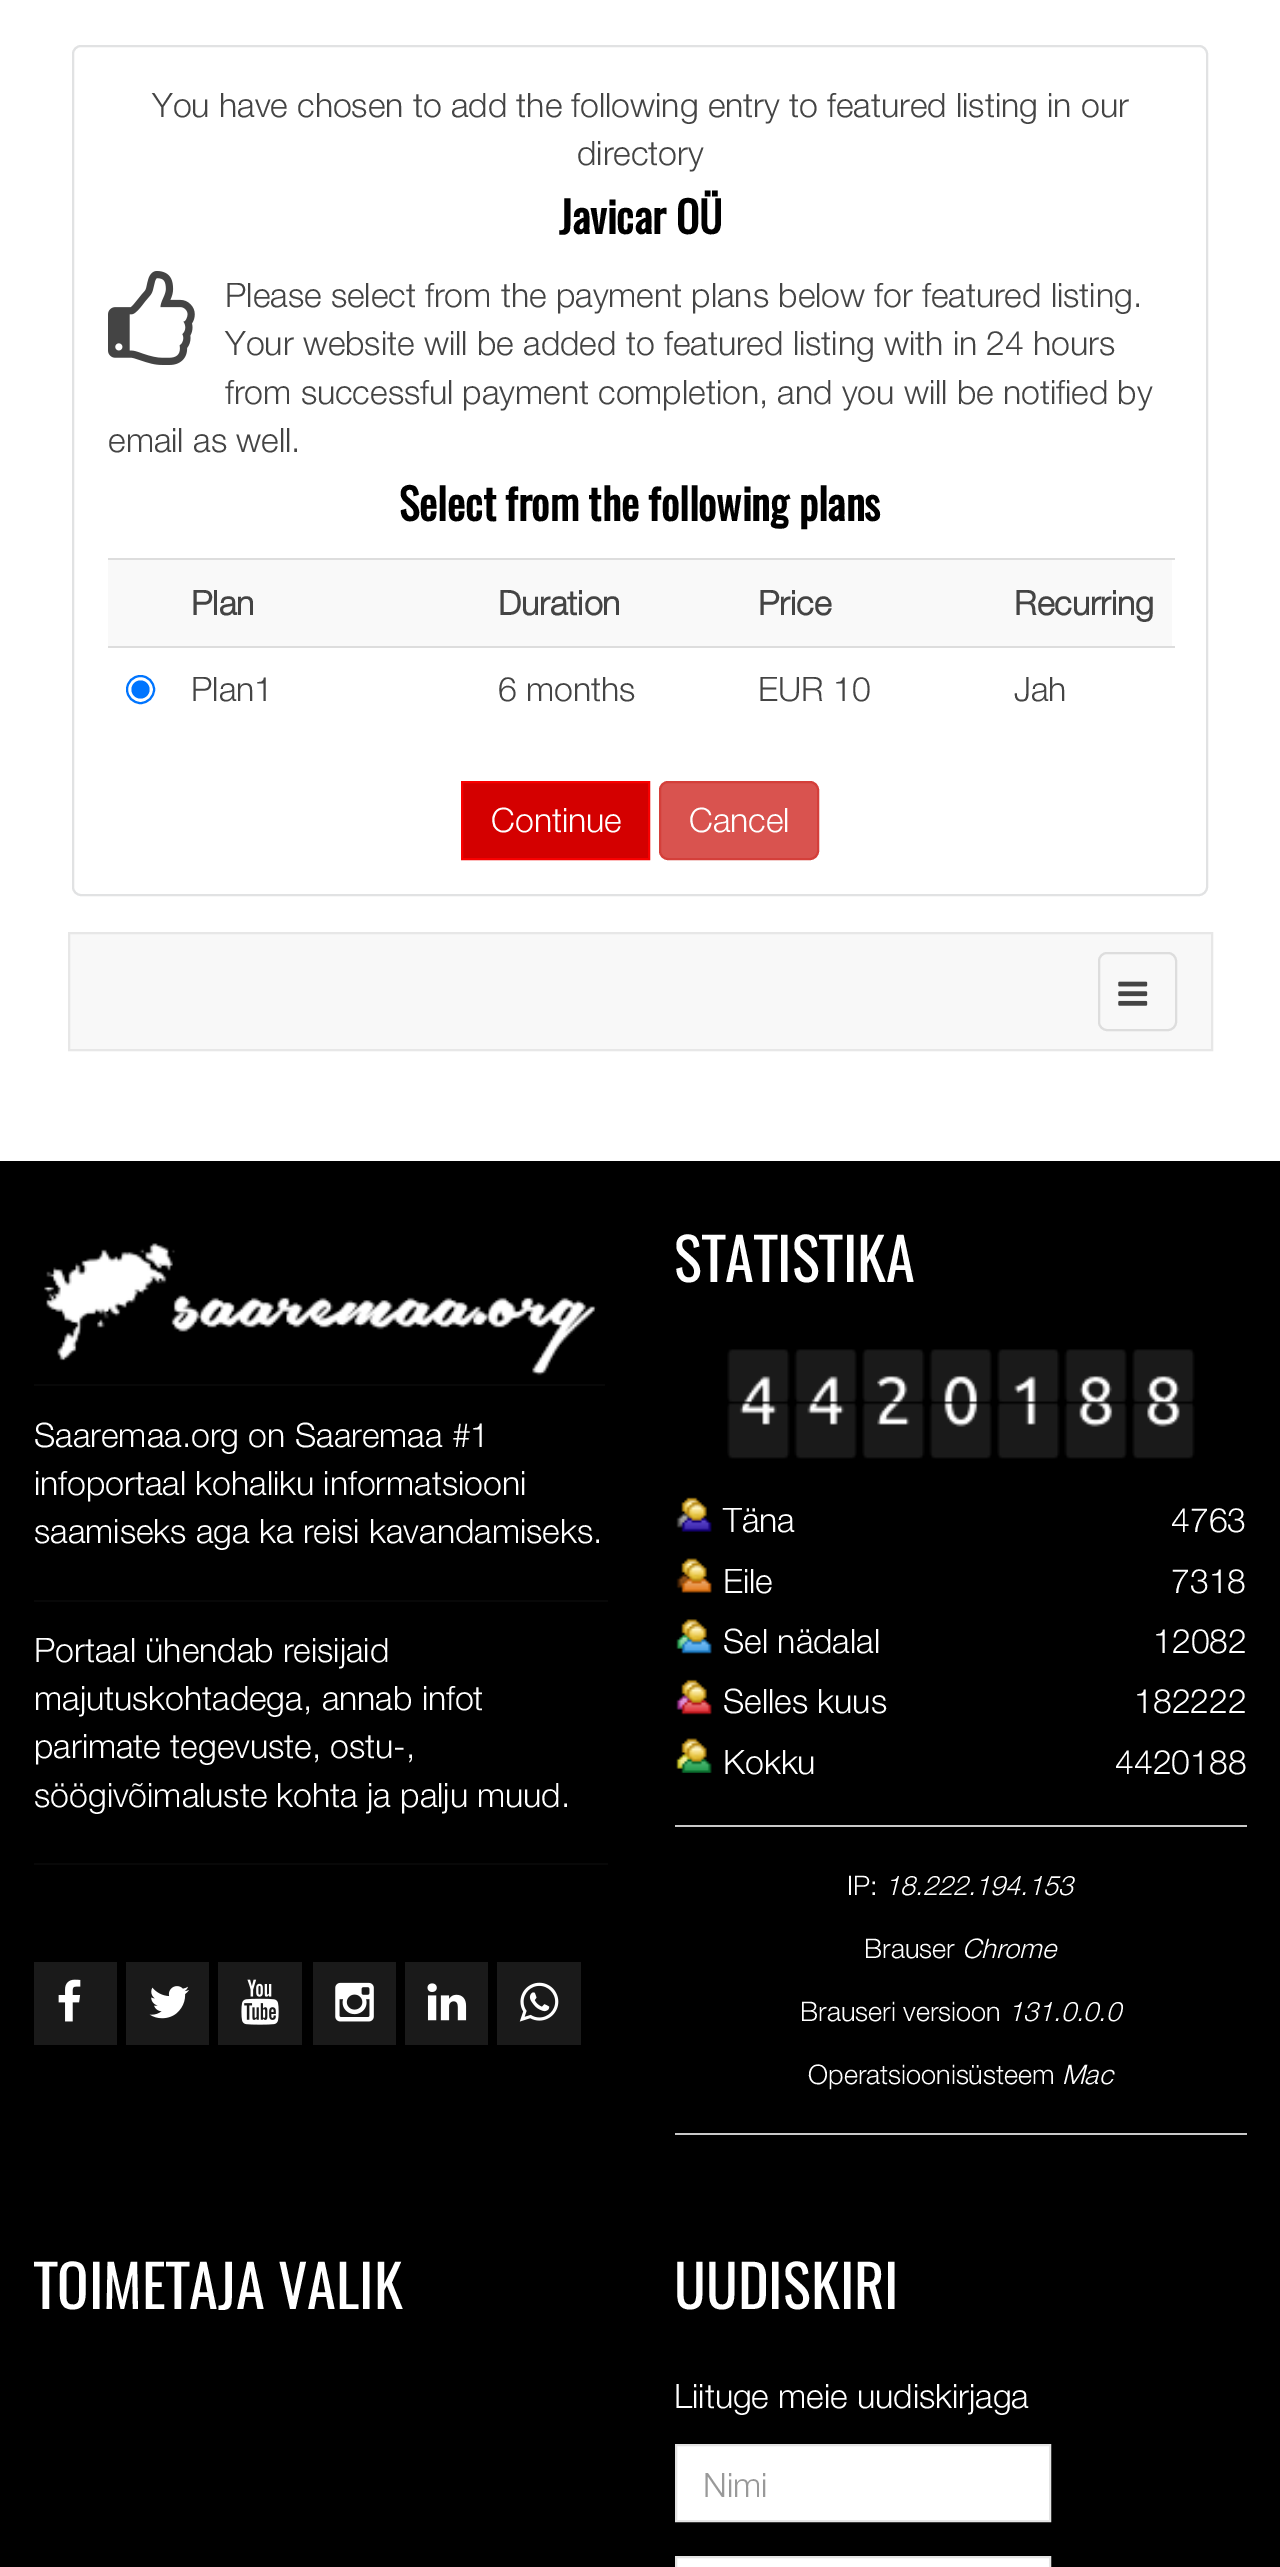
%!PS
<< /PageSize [1280 2567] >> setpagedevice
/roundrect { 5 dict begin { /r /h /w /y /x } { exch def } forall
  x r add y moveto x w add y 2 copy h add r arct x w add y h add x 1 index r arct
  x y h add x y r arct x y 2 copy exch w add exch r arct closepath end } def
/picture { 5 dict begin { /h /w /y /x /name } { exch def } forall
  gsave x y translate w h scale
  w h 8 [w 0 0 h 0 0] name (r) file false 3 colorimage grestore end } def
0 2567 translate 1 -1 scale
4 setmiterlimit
1 setgray
0 0 1280 2567 rectfill
0.882 0.886 0.89 setrgbcolor
2 setlinewidth
73 46 1134 849 8 roundrect stroke
/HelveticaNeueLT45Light-Light [33.75 0 0 -33.75 0 0] selectfont
0.267 setgray
152 117 moveto (You have chosen to add the following entry to featured listing in our) show
577 165 moveto (directory) show
/Oswald-Bold [42.75 0 0 -42.75 0 0] selectfont
0 setgray
559 234 moveto (Javicar OÜ) show
(img1.rgb) 108 271 87 94 picture
/HelveticaNeueLT45Light-Light [33.75 0 0 -33.75 0 0] selectfont
0.267 setgray
225 307 moveto (Please select from the payment plans below for featured listing.) show
225 355 moveto (Your website will be added to featured listing with in 24 hours) show
225 404 moveto (from successful payment completion, and you will be notified by) show
108 452 moveto (email as well.) show
/Oswald-Bold [42.75 0 0 -42.75 0 0] selectfont
0 setgray
399 521 moveto (Select from the following plans) show
0.976 setgray
108 560 1064 86 rectfill
/HelveticaNeueLT45Light-Bold [33.75 0 0 -33.75 0 0] selectfont
0.267 setgray
191 615 moveto (Plan) show
498 615 moveto (Duration) show
758 615 moveto (Price) show
0.867 setgray
108 558 1067 2 rectfill
0.267 setgray
1014 615 moveto (Recurring) show
0 0.459 1 setrgbcolor
newpath 140.5 689.5 13.5 0 360 arc closepath stroke
newpath 140.5 689.5 9 0 360 arc closepath fill
/HelveticaNeueLT45Light-Light [33.75 0 0 -33.75 0 0] selectfont
0.267 setgray
191 701 moveto (Plan1) show
498 701 moveto (6 months) show
758 701 moveto (EUR 10) show
0.867 setgray
108 646 1067 2 rectfill
0.267 setgray
1014 701 moveto (Jah) show
0.831 0 0 setrgbcolor
newpath 462 782 moveto 649 782 lineto 649 859 lineto 462 859 lineto closepath gsave fill grestore
0.973 0 0 setrgbcolor
stroke
1 setgray
491 832 moveto (Continue) show
0.851 0.325 0.31 setrgbcolor
660 782 158 77 8 roundrect gsave fill grestore
0.831 0.247 0.227 setrgbcolor
stroke
1 setgray
689 832 moveto (Cancel) show
0.973 setgray
newpath 69 933 moveto 1212 933 lineto 1212 1050 lineto 69 1050 lineto closepath gsave fill grestore
0.906 setgray
stroke
0.867 setgray
1099 953 77 77 8 roundrect stroke
(img2.rgb) 1118 981 30 25 picture
0 setgray
0 1161 1280 1406 rectfill
0.031 setgray
34 1384 571 2 rectfill
(img3.rgb) 44 1243 553 133 picture
34 1600 574 2 rectfill
1 setgray
34 1447 moveto (Saaremaa.org on Saaremaa #1) show
34 1495 moveto (infoportaal kohaliku informatsiooni) show
34 1543 moveto (saamiseks aga ka reisi kavandamiseks.) show
0.031 setgray
34 1863 574 2 rectfill
1 setgray
34 1662 moveto (Portaal ühendab reisijaid) show
34 1710 moveto (majutuskohtadega, annab infot) show
34 1758 moveto (parimate tegevuste, ostu-,) show
34 1807 moveto (söögivõimaluste kohta ja palju muud.) show
0.102 setgray
34 1962 83 83 rectfill
(img4.rgb) 58 1979 23 43 picture
126 1962 83 83 rectfill
(img5.rgb) 149 1986 40 33 picture
218 1962 84 83 rectfill
(img6.rgb) 241 1979 38 46 picture
313 1962 83 83 rectfill
(img7.rgb) 335 1982 39 40 picture
405 1962 83 83 rectfill
(img8.rgb) 427 1983 40 38 picture
497 1962 84 83 rectfill
(img9.rgb) 519 1982 40 40 picture
/Oswald-Regular [58.5 0 0 -58.5 0 0] selectfont
1 setgray
674 1282 moveto (STATISTIKA) show
(img10.rgb) 727 1349 63 110 picture
(img11.rgb) 794 1349 63 110 picture
(img12.rgb) 862 1349 63 110 picture
(img13.rgb) 929 1349 63 110 picture
(img14.rgb) 997 1349 63 110 picture
(img15.rgb) 1064 1349 63 110 picture
(img16.rgb) 1132 1349 63 110 picture
(img17.rgb) 676 1497 36 35 picture
/HelveticaNeueLT45Light-Light [33.75 0 0 -33.75 0 0] selectfont
723 1532 moveto (Täna) show
1171 1532 moveto (4763) show
(img18.rgb) 676 1558 36 35 picture
723 1593 moveto (Eile) show
1171 1593 moveto (7318) show
(img19.rgb) 676 1619 36 35 picture
723 1653 moveto (Sel nädalal) show
1153 1653 moveto (12082) show
(img20.rgb) 676 1679 36 36 picture
723 1713 moveto (Selles kuus) show
1134 1713 moveto (182222) show
(img21.rgb) 676 1738 36 35 picture
723 1774 moveto (Kokku) show
1115 1774 moveto (4420188) show
0.784 setgray
675 1825 572 2 rectfill
/HelveticaNeueLT45Light-Light [27 0 0 -27 0 0] selectfont
1 setgray
847 1895 moveto (IP:) show
/HelveticaNeueLT45Light-LightItalic [27 0 0 -27 0 0] selectfont
885 1895 moveto (18.222.194.153) show
/HelveticaNeueLT45Light-Light [27 0 0 -27 0 0] selectfont
864 1958 moveto (Brauser) show
/HelveticaNeueLT45Light-LightItalic [27 0 0 -27 0 0] selectfont
962 1958 moveto (Chrome) show
/HelveticaNeueLT45Light-Light [27 0 0 -27 0 0] selectfont
800 2021 moveto (Brauseri versioon) show
/HelveticaNeueLT45Light-LightItalic [27 0 0 -27 0 0] selectfont
1008 2021 moveto (131.0.0.0) show
/HelveticaNeueLT45Light-Light [27 0 0 -27 0 0] selectfont
808 2084 moveto (Operatsioonisüsteem) show
/HelveticaNeueLT45Light-LightItalic [27 0 0 -27 0 0] selectfont
1062 2084 moveto (Mac) show
0.784 setgray
675 2133 572 2 rectfill
/Oswald-Regular [58.5 0 0 -58.5 0 0] selectfont
1 setgray
34 2309 moveto (TOIMETAJA VALIK) show
674 2309 moveto (UUDISKIRI) show
/HelveticaNeueLT45Light-Light [33.75 0 0 -33.75 0 0] selectfont
674 2408 moveto (Liituge meie uudiskirjaga) show
newpath 676 2445 moveto 1050 2445 lineto 1050 2521 lineto 676 2521 lineto closepath gsave fill grestore
0.894 setgray
stroke
0.6 setgray
703 2497 moveto (Nimi) show
1 setgray
newpath 676 2557 moveto 1050 2557 lineto 1050 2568 lineto 676 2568 lineto closepath gsave fill grestore
0.894 setgray
stroke
showpage
